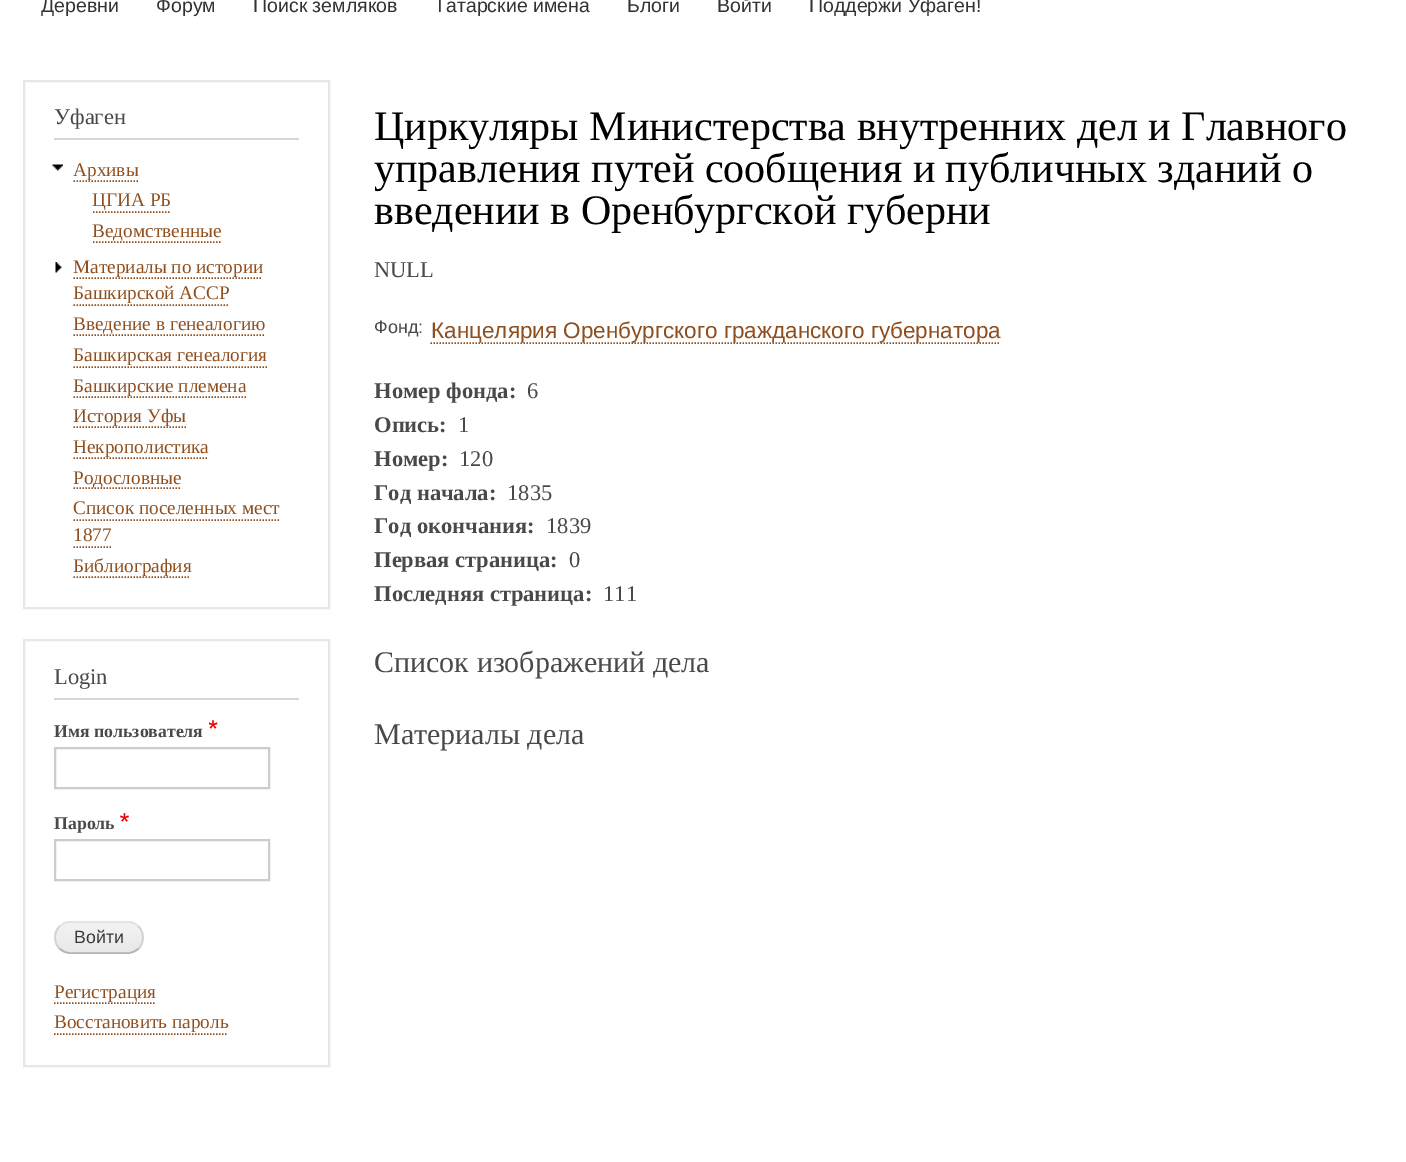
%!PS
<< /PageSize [1406 1162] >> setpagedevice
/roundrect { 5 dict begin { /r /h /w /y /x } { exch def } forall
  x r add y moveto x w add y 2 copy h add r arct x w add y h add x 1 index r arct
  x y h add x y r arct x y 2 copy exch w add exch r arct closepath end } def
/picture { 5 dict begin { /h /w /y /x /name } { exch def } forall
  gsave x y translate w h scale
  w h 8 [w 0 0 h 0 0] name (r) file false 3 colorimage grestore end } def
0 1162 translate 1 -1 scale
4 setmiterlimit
1 setgray
0 0 1406 1162 rectfill
/LiberationSans-Regular [19.5 0 0 -19.5 0 0] selectfont
0.2 setgray
41 12 moveto (Деревни) show
156 12 moveto (Форум) show
253 12 moveto (Поиск земляков) show
434 12 moveto (Татарские имена) show
627 12 moveto (Блоги) show
717 12 moveto (Войти) show
809 12 moveto (Поддержи Уфаген!) show
0.906 setgray
2 setlinewidth
24 81 305 527 rectstroke
0.839 setgray
54 138 245 2 rectfill
/LiberationSerif-Regular [22.5 0 0 -22.5 0 0] selectfont
0.286 setgray
54 124 moveto (Уфаген) show
(img1.rgb) 52 164 11 7 picture
0.561 0.306 0.118 setrgbcolor
1.5 setlinewidth
[1.5 1.5] 0 setdash
newpath 73.5 181 moveto 138 181 lineto stroke
/LiberationSerif-Regular [19.25 0 0 -19.25 0 0] selectfont
73 176 moveto (Архивы) show
92 206 moveto (ЦГИА РБ) show
newpath 93 212 moveto 171 212 lineto stroke
92 237 moveto (Ведомственные) show
newpath 93 242 moveto 222 242 lineto stroke
(img2.rgb) 55 262 7 11 picture
newpath 73.5 278 moveto 262.5 278 lineto stroke
73 273 moveto (Материалы по истории) show
73 299 moveto (Башкирской АССР) show
newpath 73.5 305 moveto 229.5 305 lineto stroke
73 330 moveto (Введение в генеалогию) show
newpath 73.5 335 moveto 264 335 lineto stroke
73 361 moveto (Башкирская генеалогия) show
newpath 73.5 367 moveto 267 367 lineto stroke
newpath 73.5 397 moveto 246 397 lineto stroke
73 392 moveto (Башкирские племена) show
newpath 73.5 427 moveto 186 427 lineto stroke
73 422 moveto (История Уфы) show
newpath 73.5 458 moveto 208.5 458 lineto stroke
73 453 moveto (Некрополистика) show
newpath 73.5 488 moveto 181.5 488 lineto stroke
73 484 moveto (Родословные) show
73 514 moveto (Список поселенных мест) show
newpath 73.5 520 moveto 279 520 lineto stroke
73 541 moveto (1877) show
newpath 73.5 547 moveto 111 547 lineto stroke
newpath 73.5 577 moveto 190.5 577 lineto stroke
73 572 moveto (Библиография) show
0.906 setgray
2 setlinewidth
[] 0 setdash
24 640 305 426 rectstroke
0.839 setgray
54 698 245 2 rectfill
/LiberationSerif-Regular [22.5 0 0 -22.5 0 0] selectfont
0.286 setgray
54 684 moveto (Login) show
/LiberationSerif-Bold [17.75 0 0 -17.75 0 0] selectfont
54 737 moveto (Имя пользователя) show
(img3.rgb) 209 720 9 9 picture
0.8 setgray
55 748 214 40 rectstroke
0.286 setgray
54 829 moveto (Пароль) show
(img4.rgb) 120 813 9 9 picture
0.8 setgray
55 840 214 40 rectstroke
gsave
54 921 90 33 16.5 roundrect clip newpath
gsave newpath 54 921 moveto 144 921 lineto 144 923 lineto 54 923 lineto closepath clip newpath
<< /ShadingType 2 /ColorSpace /DeviceRGB /Coords [99 893 99 923] /Extend [true true] /Function << /FunctionType 2 /Domain [0 1] /C0 [0.953 0.953 0.953] /C1 [0.91 0.91 0.91] /N 1 >> >> shfill grestore
gsave newpath 54 923 moveto 144 923 lineto 144 953 lineto 54 953 lineto closepath clip newpath
<< /ShadingType 2 /ColorSpace /DeviceRGB /Coords [99 923 99 953] /Extend [true true] /Function << /FunctionType 2 /Domain [0 1] /C0 [0.953 0.953 0.953] /C1 [0.91 0.91 0.91] /N 1 >> >> shfill grestore
gsave newpath 65 953 moveto 133 953 lineto 133 954 lineto 65 954 lineto closepath clip newpath
<< /ShadingType 2 /ColorSpace /DeviceRGB /Coords [99 953 99 983] /Extend [true true] /Function << /FunctionType 2 /Domain [0 1] /C0 [0.953 0.953 0.953] /C1 [0.91 0.91 0.91] /N 1 >> >> shfill grestore
grestore
0.894 setgray
1.5 setlinewidth
newpath 59.5 926.5 moveto 62.5 923.5 66.5 922 70.5 922 curveto 127.5 922 lineto 131.5 922 135.5 923.5 138.5 926.5 curveto stroke
0.824 setgray
newpath 138.5 926.5 moveto 144.5 932.5 144.5 942.5 138.5 948.5 curveto stroke
0.706 setgray
newpath 138.5 948.5 moveto 135.5 951.5 131.5 953 127.5 953 curveto 70.5 953 lineto 66.5 953 62.5 951.5 59.5 948.5 curveto stroke
0.824 setgray
newpath 59.5 948.5 moveto 53.5 942.5 53.5 932.5 59.5 926.5 curveto stroke
/LiberationSans-Regular [17.75 0 0 -17.75 0 0] selectfont
0.227 setgray
74 943 moveto (Войти) show
0.561 0.306 0.118 setrgbcolor
[1.5 1.5] 0 setdash
newpath 54 1003 moveto 156 1003 lineto stroke
/LiberationSerif-Regular [19.25 0 0 -19.25 0 0] selectfont
54 998 moveto (Регистрация) show
54 1028 moveto (Восстановить пароль) show
newpath 54 1034 moveto 228 1034 lineto stroke
/LiberationSerif-Regular [42 0 0 -42 0 0] selectfont
0 setgray
374 140 moveto (Циркуляры Министерства внутренних дел и Главного) show
374 182 moveto (управления путей сообщения и публичных зданий о) show
374 224 moveto (введении в Оренбургской губерни) show
/LiberationSerif-Regular [22.5 0 0 -22.5 0 0] selectfont
0.286 setgray
374 277 moveto (NULL) show
/LiberationSans-Regular [18 0 0 -18 0 0] selectfont
374 333 moveto (Фонд:) show
0.561 0.306 0.118 setrgbcolor
newpath 430.5 343 moveto 1000.5 343 lineto stroke
/LiberationSans-Regular [22.5 0 0 -22.5 0 0] selectfont
431 338 moveto (Канцелярия Оренбургского гражданского губернатора) show
/LiberationSerif-Bold [22.5 0 0 -22.5 0 0] selectfont
0.286 setgray
374 398 moveto (Номер фонда:) show
/LiberationSerif-Regular [22.5 0 0 -22.5 0 0] selectfont
527 398 moveto (6) show
/LiberationSerif-Bold [22.5 0 0 -22.5 0 0] selectfont
374 432 moveto (Опись:) show
/LiberationSerif-Regular [22.5 0 0 -22.5 0 0] selectfont
458 432 moveto (1) show
/LiberationSerif-Bold [22.5 0 0 -22.5 0 0] selectfont
374 466 moveto (Номер:) show
/LiberationSerif-Regular [22.5 0 0 -22.5 0 0] selectfont
459 466 moveto (120) show
/LiberationSerif-Bold [22.5 0 0 -22.5 0 0] selectfont
374 500 moveto (Год начала:) show
/LiberationSerif-Regular [22.5 0 0 -22.5 0 0] selectfont
507 500 moveto (1835) show
/LiberationSerif-Bold [22.5 0 0 -22.5 0 0] selectfont
374 533 moveto (Год окончания:) show
/LiberationSerif-Regular [22.5 0 0 -22.5 0 0] selectfont
546 533 moveto (1839) show
/LiberationSerif-Bold [22.5 0 0 -22.5 0 0] selectfont
374 567 moveto (Первая страница:) show
/LiberationSerif-Regular [22.5 0 0 -22.5 0 0] selectfont
569 567 moveto (0) show
/LiberationSerif-Bold [22.5 0 0 -22.5 0 0] selectfont
374 601 moveto (Последняя страница:) show
/LiberationSerif-Regular [22.5 0 0 -22.5 0 0] selectfont
603 601 moveto (111) show
/LiberationSerif-Regular [30 0 0 -30 0 0] selectfont
374 672 moveto (Список изображений дела) show
374 744 moveto (Материалы дела) show
showpage
